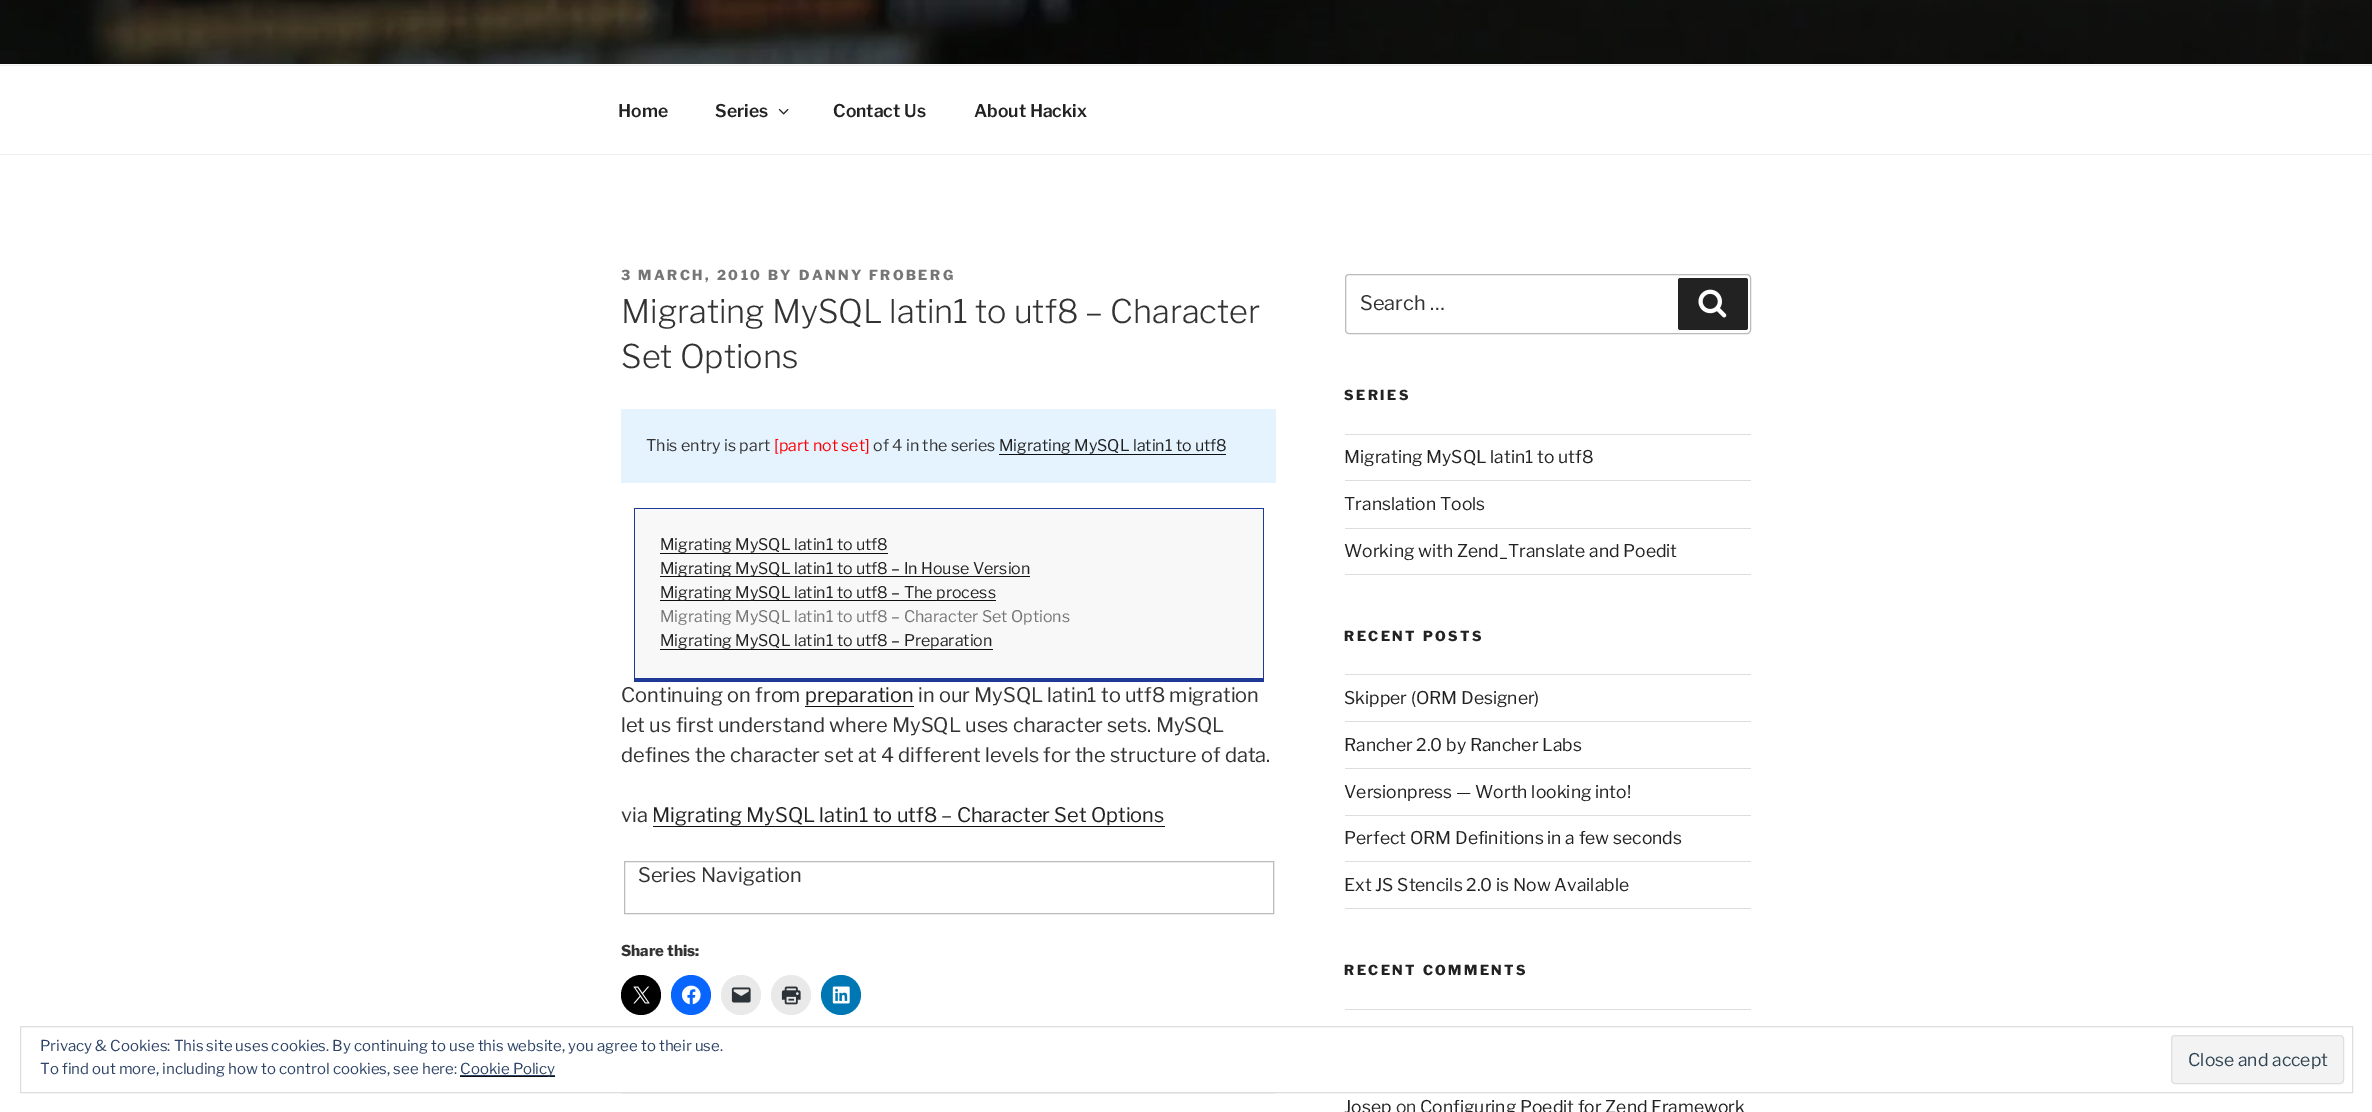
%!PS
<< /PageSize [2372 1112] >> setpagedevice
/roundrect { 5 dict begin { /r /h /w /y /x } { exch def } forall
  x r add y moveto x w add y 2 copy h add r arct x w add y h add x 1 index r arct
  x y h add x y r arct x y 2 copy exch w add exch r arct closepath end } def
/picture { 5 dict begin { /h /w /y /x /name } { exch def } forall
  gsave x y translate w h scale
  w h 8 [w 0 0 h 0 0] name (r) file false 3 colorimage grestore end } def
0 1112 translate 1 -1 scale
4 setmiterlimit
1 setgray
0 0 2372 1112 rectfill
0.98 setgray
0 64 2372 1 rectfill
(img1.rgb) 0 0 2372 64 picture
0.933 setgray
0 65 2372 1 rectfill
0 154 2372 1 rectfill
/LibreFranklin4-Thin [17.5 0 0 -17.5 0 0] selectfont
0.133 setgray
618 117 moveto (Home) show
715 117 moveto (Series) show
(img2.rgb) 778 108 11 7 picture
833 117 moveto (Contact Us) show
974 117 moveto (About Hackix) show
/LibreFranklin-Thin [13.75 0 0 -13.75 0 0] selectfont
0.463 setgray
621 280 moveto 2.5 0 (3 MARCH, 2010 BY DANNY FROBERG) ashow
/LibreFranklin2-Thin [32.5 0 0 -32.5 0 0] selectfont
0.2 setgray
621 323 moveto (Migrating MySQL latin1 to utf8 – Character) show
621 368 moveto (Set Options) show
0.898 0.953 1 setrgbcolor
621 409 655 74 rectfill
/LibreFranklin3-Thin [16 0 0 -16 0 0] selectfont
0.2 setgray
646 451 moveto (This entry is part) show
1 0 0 setrgbcolor
774 451 moveto ([part not set]) show
0.2 setgray
873 451 moveto (of 4 in the series) show
0.133 setgray
999 451 moveto (Migrating MySQL latin1 to utf8) show
0.059 setgray
999 454 227 1 rectfill
0.973 setgray
635 509 628 169 rectfill
0.118 0.227 0.588 setrgbcolor
634 508 630 1 rectfill
1263 508 1 173 rectfill
634 678 630 4 rectfill
634 508 1 173 rectfill
0.133 setgray
660 550 moveto (Migrating MySQL latin1 to utf8) show
0.059 setgray
660 553 228 1 rectfill
660 576 370 1 rectfill
0.133 setgray
660 574 moveto (Migrating MySQL latin1 to utf8 – In House Version) show
0.059 setgray
660 600 336 1 rectfill
0.133 setgray
660 598 moveto (Migrating MySQL latin1 to utf8 – The process) show
0.463 setgray
660 622 moveto (Migrating MySQL latin1 to utf8 – Character Set Options) show
0.133 setgray
660 646 moveto (Migrating MySQL latin1 to utf8 – Preparation) show
0.059 setgray
660 649 333 1 rectfill
/LibreFranklin3-Thin [20 0 0 -20 0 0] selectfont
0.2 setgray
621 702 moveto (Continuing on from) show
0.133 setgray
805 702 moveto (preparation) show
0.059 setgray
805 706 109 1 rectfill
0.2 setgray
918 702 moveto (in our MySQL latin1 to utf8 migration) show
621 732 moveto (let us first understand where MySQL uses character sets. MySQL) show
621 762 moveto (defines the character set at 4 different levels for the structure of data.) show
621 822 moveto (via) show
0.133 setgray
652 822 moveto (Migrating MySQL latin1 to utf8 – Character Set Options) show
0.059 setgray
653 826 512 1 rectfill
0.733 setgray
624.5 861.5 649 52 rectstroke
0.2 setgray
638 882 moveto (Series Navigation) show
/LibreFranklin-Thin [15 0 0 -15 0 0] selectfont
621 956 moveto (Share this:) show
0 setgray
newpath 641 995 20 0 360 arc closepath fill
(img3.rgb) 633 986 17 18 picture
0.031 0.4 1 setrgbcolor
newpath 691 995 20 0 360 arc closepath fill
(img4.rgb) 681 985 20 20 picture
0.914 setgray
newpath 741 995 20 0 360 arc closepath fill
(img5.rgb) 731 987 20 16 picture
newpath 791 995 20 0 360 arc closepath fill
(img6.rgb) 781 986 20 19 picture
0 0.467 0.71 setrgbcolor
newpath 841 995 20 0 360 arc closepath fill
(img7.rgb) 832 986 18 18 picture
0.933 setgray
621 1093 655 1 rectfill
0.733 setgray
1345.5 274.5 405 59 3.5 roundrect stroke
/LibreFranklin3-Thin [20 0 0 -20 0 0] selectfont
0.2 setgray
1360 310 moveto (Search …) show
0.133 setgray
1678 278 70 52 2.5 roundrect fill
(img8.rgb) 1698 289 29 29 picture
/LibreFranklin-Thin [13.75 0 0 -13.75 0 0] selectfont
1344 400 moveto 2.5 0 (SERIES) ashow
0.867 setgray
1345 434 406 1 rectfill
1345 480 406 1 rectfill
/LibreFranklin3-Thin [17.5 0 0 -17.5 0 0] selectfont
0.133 setgray
1344 463 moveto (Migrating MySQL latin1 to utf8) show
0.867 setgray
1345 528 406 1 rectfill
0.133 setgray
1344 510 moveto (Translation Tools) show
0.867 setgray
1345 574 406 1 rectfill
0.133 setgray
1344 557 moveto (Working with Zend_Translate and Poedit) show
/LibreFranklin-Thin [13.75 0 0 -13.75 0 0] selectfont
1344 641 moveto 2.5 0 (RECENT POSTS) ashow
0.867 setgray
1345 674 406 1 rectfill
1345 721 406 1 rectfill
/LibreFranklin3-Thin [17.5 0 0 -17.5 0 0] selectfont
0.133 setgray
1344 704 moveto (Skipper \(ORM Designer\)) show
0.867 setgray
1345 768 406 1 rectfill
0.133 setgray
1344 751 moveto (Rancher 2.0 by Rancher Labs) show
0.867 setgray
1345 815 406 1 rectfill
0.133 setgray
1344 798 moveto (Versionpress — Worth looking into!) show
0.867 setgray
1345 861 406 1 rectfill
0.133 setgray
1344 844 moveto (Perfect ORM Definitions in a few seconds) show
0.867 setgray
1345 908 406 1 rectfill
0.133 setgray
1344 891 moveto (Ext JS Stencils 2.0 is Now Available) show
/LibreFranklin-Thin [13.75 0 0 -13.75 0 0] selectfont
1344 975 moveto 2.5 0 (RECENT COMMENTS) ashow
0.867 setgray
1345 1009 406 1 rectfill
/LibreFranklin3-Thin [17.5 0 0 -17.5 0 0] selectfont
0.133 setgray
1344 1113 moveto (Josep) show
0.2 setgray
1396 1113 moveto (on) show
0.133 setgray
1420 1113 moveto (Configuring Poedit for Zend Framework) show
0.871 setgray
20.5 1026.5 2332 66 rectstroke
/LibreFranklin3-Thin [15 0 0 -15 0 0] selectfont
0.18 0.267 0.404 setrgbcolor
40 1051 moveto (Privacy & Cookies: This site uses cookies. By continuing to use this website, you agree to their use.) show
40 1074 moveto (To find out more, including how to control cookies, see here:) show
0.059 setgray
460 1076 95 1 rectfill
0.18 0.267 0.404 setrgbcolor
460 1075 95 1 rectfill
460 1074 moveto (Cookie Policy) show
0.953 setgray
2171.5 1035.5 172 48 3.5 roundrect gsave fill grestore
0.871 setgray
stroke
/LibreFranklin3-Thin [17.5 0 0 -17.5 0 0] selectfont
0.18 0.267 0.325 setrgbcolor
2188 1066 moveto (Close and accept) show
showpage
